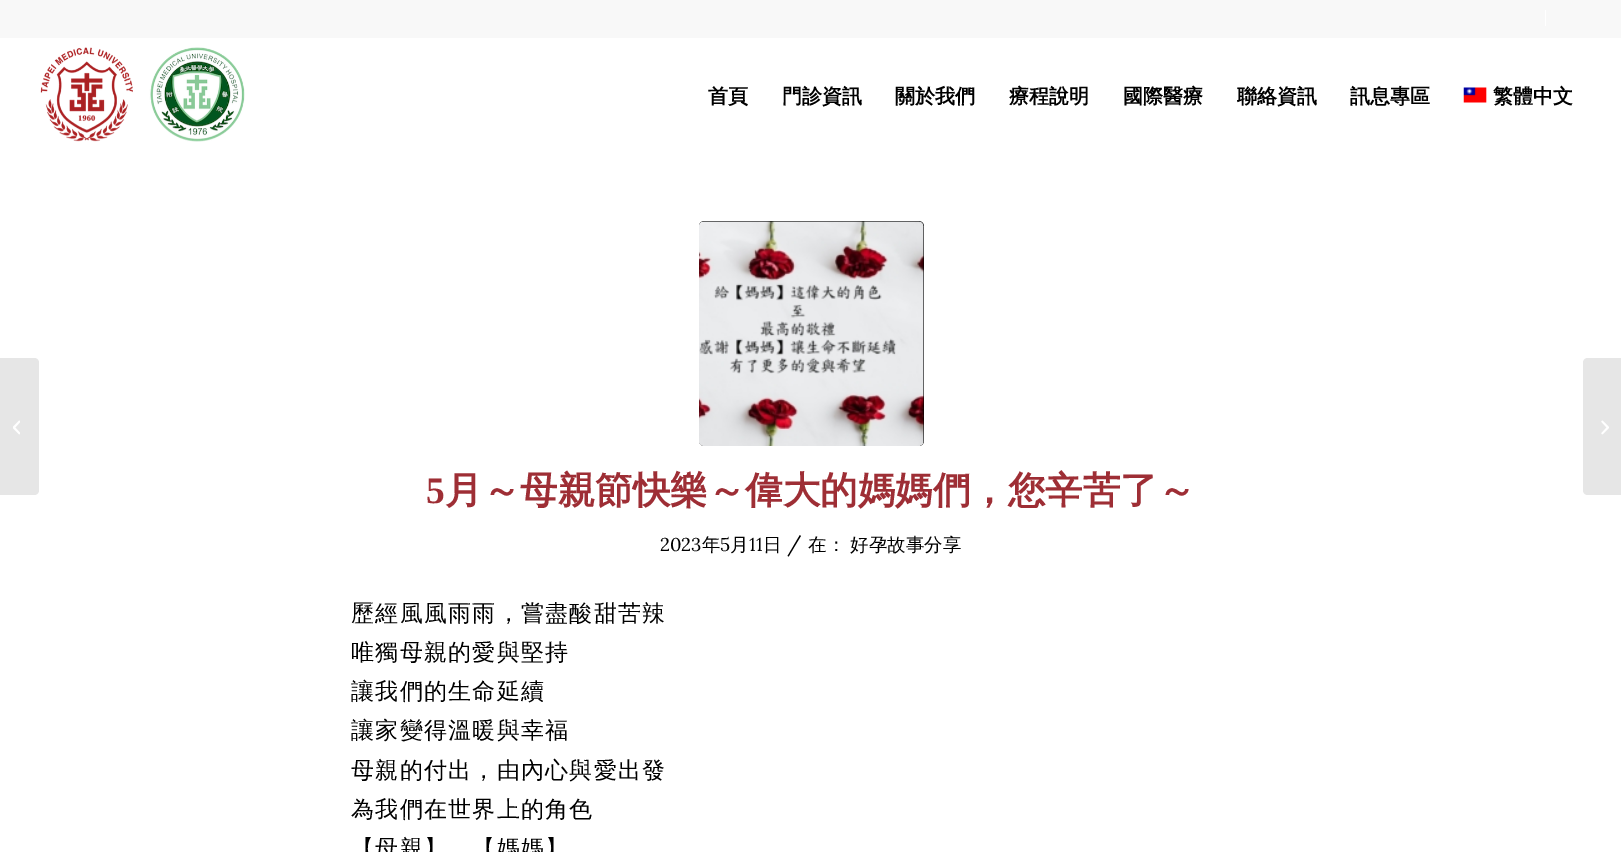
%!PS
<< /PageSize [1621 852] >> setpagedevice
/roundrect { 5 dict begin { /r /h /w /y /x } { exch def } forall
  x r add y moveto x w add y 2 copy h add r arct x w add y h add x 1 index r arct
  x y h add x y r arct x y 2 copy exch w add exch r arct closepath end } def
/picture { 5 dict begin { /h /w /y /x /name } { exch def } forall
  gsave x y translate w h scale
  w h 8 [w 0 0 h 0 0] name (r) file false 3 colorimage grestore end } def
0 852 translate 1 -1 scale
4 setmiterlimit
1 setgray
0 0 1621 852 rectfill
0.973 setgray
0 0 1621 38 rectfill
1 setgray
1545 10 1 16 rectfill
(img1.rgb) 40 47 205 95 picture
/WenQuanYiZenHei-Bold [20 0 0 -20 0 0] selectfont
0 setgray
708 103 moveto (首頁) show
782 103 moveto (門診資訊) show
895 103 moveto (關於我們) show
1009 103 moveto (療程說明) show
1123 103 moveto (國際醫療) show
1237 103 moveto (聯絡資訊) show
1350 103 moveto (訊息專區) show
(img2.rgb) 1463 87 24 16 picture
1493 103 moveto (繁體中文) show
0.902 setgray
newpath 0 358 moveto 34 358 lineto 37 358 39 360 39 363 curveto 39 490 lineto 39 493 37 495 34 495 curveto 0 495 lineto closepath fill
(img3.rgb) 13 420 7 15 picture
newpath 1588 358 moveto 1621 358 lineto 1621 495 lineto 1588 495 lineto 1585 495 1583 493 1583 490 curveto 1583 363 lineto 1583 360 1585 358 1588 358 curveto closepath fill
(img4.rgb) 1601 420 8 15 picture
0 setgray
699 221 225 225 5 roundrect fill
(img5.rgb) 699 221 225 225 picture
/LiberationSerif-Bold [37.5 0 0 -37.5 0 0] selectfont
0.62 0.18 0.208 setrgbcolor
426 503 moveto (5) show
/WenQuanYiZenHei-Bold [37.5 0 0 -37.5 0 0] selectfont
445 503 moveto (月～母親節快樂～偉大的媽媽們，您辛苦了～) show
/Lora-Regular [18.5 0 0 -18.5 0 0] selectfont
0 setgray
660 551 moveto (2023) show
/WenQuanYiZenHei-Medium [18.5 0 0 -18.5 0 0] selectfont
702 551 moveto (年) show
/Lora-Regular [18.5 0 0 -18.5 0 0] selectfont
720 551 moveto (5) show
/WenQuanYiZenHei-Medium [18.5 0 0 -18.5 0 0] selectfont
730 551 moveto (月) show
/Lora-Regular [18.5 0 0 -18.5 0 0] selectfont
749 551 moveto (11) show
/WenQuanYiZenHei-Medium [18.5 0 0 -18.5 0 0] selectfont
763 551 moveto (日) show
/Lora-Regular [21 0 0 -21 0 0] selectfont
787 551 moveto (/) show
/WenQuanYiZenHei-Medium [18.5 0 0 -18.5 0 0] selectfont
808 551 moveto (在：) show
850 551 moveto (好孕故事分享) show
/WenQuanYiZenHei-Medium [23 0 0 -23 0 0] selectfont
351 621 moveto 1.25 0 (歷經風風雨雨，嘗盡酸甜苦辣) ashow
351 660 moveto 1.25 0 (唯獨母親的愛與堅持) ashow
351 699 moveto 1.25 0 (讓我們的生命延續) ashow
351 738 moveto 1.25 0 (讓家變得溫暖與幸福) ashow
351 778 moveto 1.25 0 (母親的付出，由內心與愛出發) ashow
351 817 moveto 1.25 0 (為我們在世界上的角色) ashow
351 856 moveto 1.25 0 (【母親】、【媽媽】) ashow
showpage
